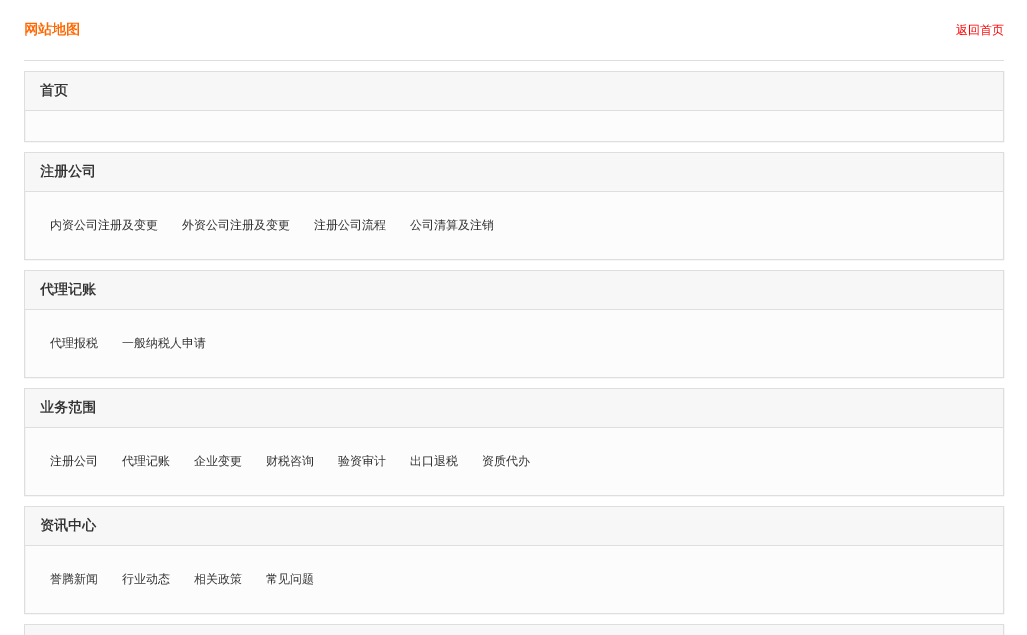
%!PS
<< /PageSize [1027 635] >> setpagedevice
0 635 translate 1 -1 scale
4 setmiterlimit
1 setgray
0 0 1027 635 rectfill
0.871 setgray
24 60 980 1 rectfill
/WenQuanYiZenHei-Bold [14 0 0 -14 0 0] selectfont
1 0.4 0 setrgbcolor
24 34 moveto (网站地图) show
/WenQuanYiZenHei-Medium [12 0 0 -12 0 0] selectfont
1 0 0 setrgbcolor
956 34 moveto (返回首页) show
0.988 setgray
25 111 978 30 rectfill
0.871 setgray
24.5 71.5 979 70 rectstroke
0.969 setgray
25 72 978 38 rectfill
0.871 setgray
25 110 978 1 rectfill
/WenQuanYiZenHei-Bold [14 0 0 -14 0 0] selectfont
0.2 setgray
40 95 moveto (首页) show
0.988 setgray
25 192 978 67 rectfill
0.871 setgray
24.5 152.5 979 107 rectstroke
0.969 setgray
25 153 978 38 rectfill
0.871 setgray
25 191 978 1 rectfill
0.2 setgray
40 176 moveto (注册公司) show
/WenQuanYiZenHei-Medium [12 0 0 -12 0 0] selectfont
50 229 moveto (内资公司注册及变更) show
182 229 moveto (外资公司注册及变更) show
314 229 moveto (注册公司流程) show
410 229 moveto (公司清算及注销) show
0.988 setgray
25 310 978 67 rectfill
0.871 setgray
24.5 270.5 979 107 rectstroke
0.969 setgray
25 271 978 38 rectfill
0.871 setgray
25 309 978 1 rectfill
/WenQuanYiZenHei-Bold [14 0 0 -14 0 0] selectfont
0.2 setgray
40 294 moveto (代理记账) show
/WenQuanYiZenHei-Medium [12 0 0 -12 0 0] selectfont
50 347 moveto (代理报税) show
122 347 moveto (一般纳税人申请) show
0.988 setgray
25 428 978 67 rectfill
0.871 setgray
24.5 388.5 979 107 rectstroke
0.969 setgray
25 389 978 38 rectfill
0.871 setgray
25 427 978 1 rectfill
/WenQuanYiZenHei-Bold [14 0 0 -14 0 0] selectfont
0.2 setgray
40 412 moveto (业务范围) show
/WenQuanYiZenHei-Medium [12 0 0 -12 0 0] selectfont
50 465 moveto (注册公司) show
122 465 moveto (代理记账) show
194 465 moveto (企业变更) show
266 465 moveto (财税咨询) show
338 465 moveto (验资审计) show
410 465 moveto (出口退税) show
482 465 moveto (资质代办) show
0.988 setgray
25 546 978 67 rectfill
0.871 setgray
24.5 506.5 979 107 rectstroke
0.969 setgray
25 507 978 38 rectfill
0.871 setgray
25 545 978 1 rectfill
/WenQuanYiZenHei-Bold [14 0 0 -14 0 0] selectfont
0.2 setgray
40 530 moveto (资讯中心) show
/WenQuanYiZenHei-Medium [12 0 0 -12 0 0] selectfont
50 583 moveto (誉腾新闻) show
122 583 moveto (行业动态) show
194 583 moveto (相关政策) show
266 583 moveto (常见问题) show
0.871 setgray
24.5 624.5 979 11 rectstroke
0.969 setgray
25 625 978 10 rectfill
showpage
